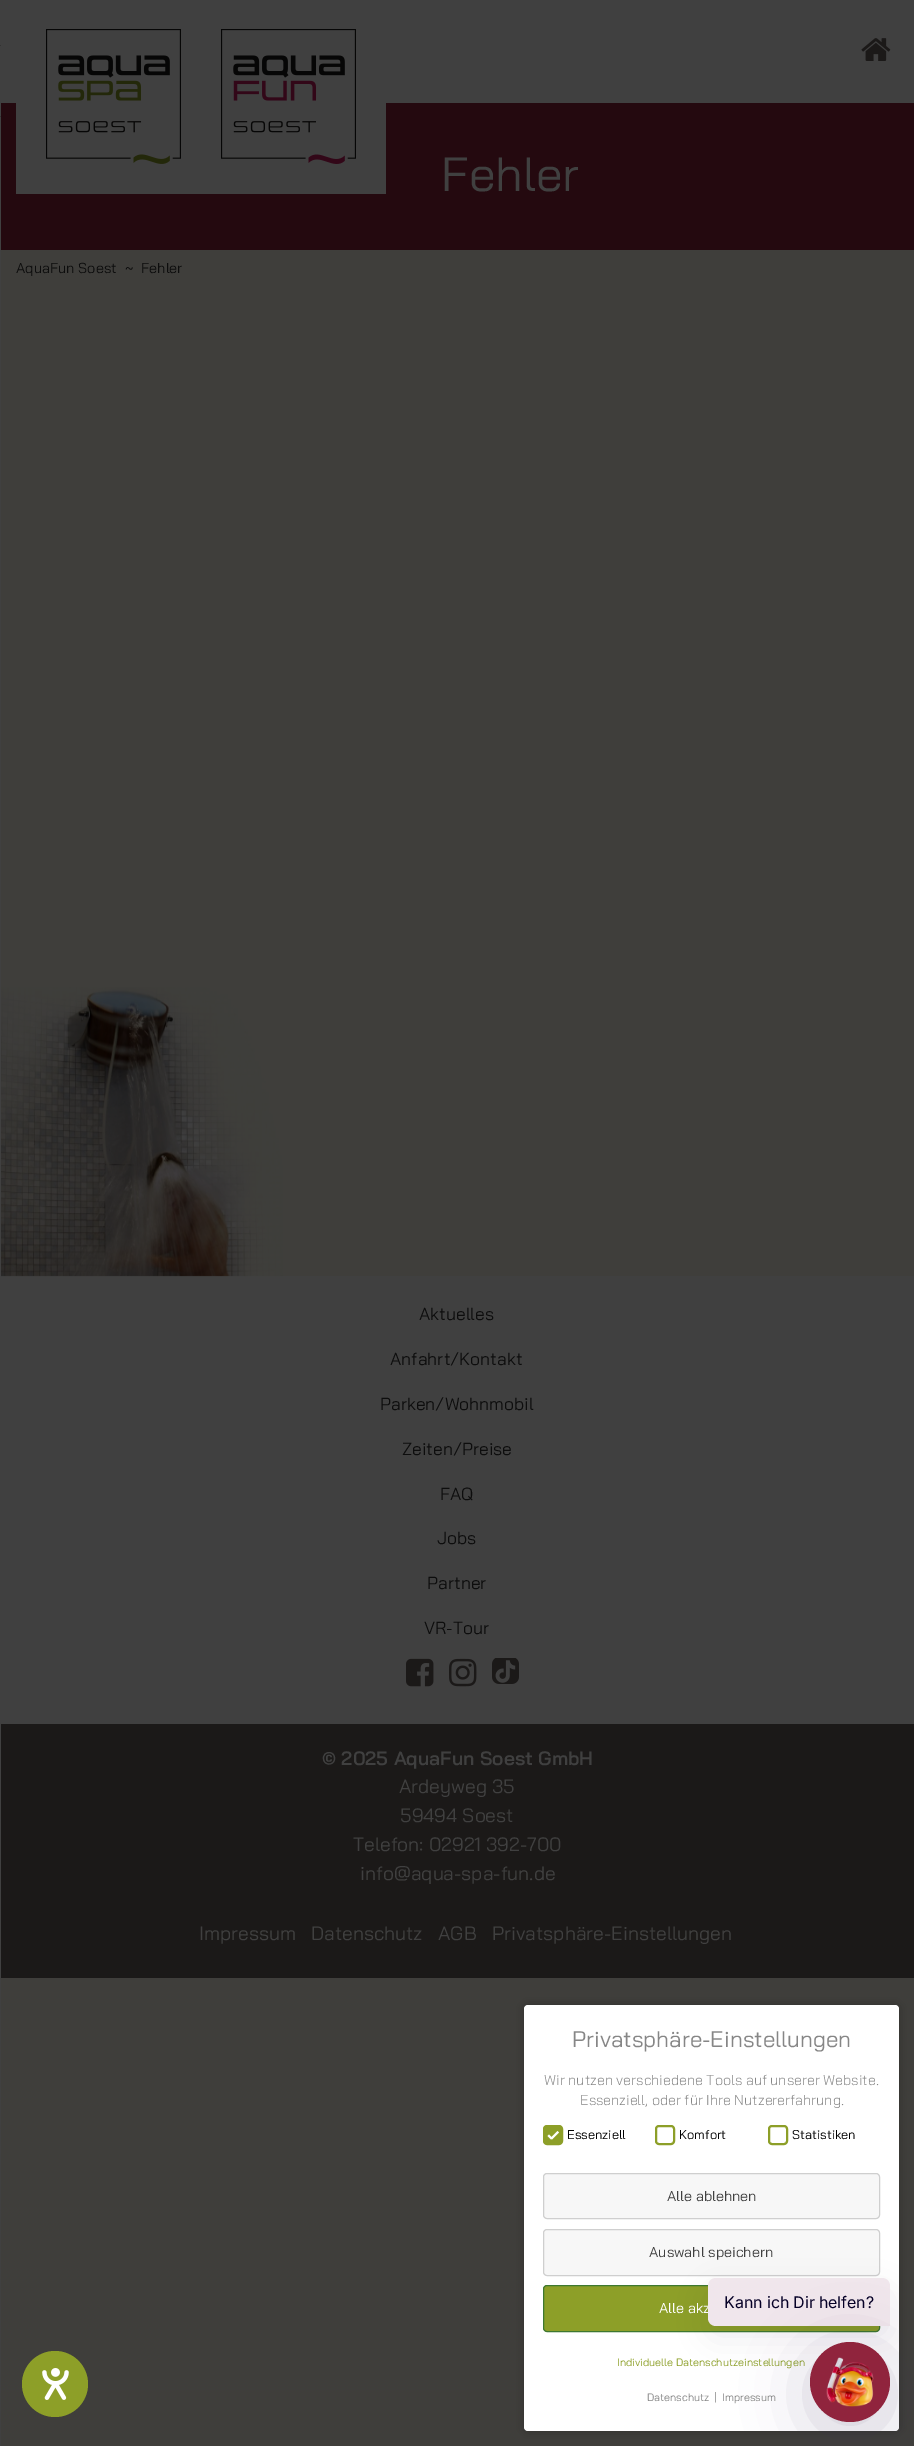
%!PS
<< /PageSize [914 2446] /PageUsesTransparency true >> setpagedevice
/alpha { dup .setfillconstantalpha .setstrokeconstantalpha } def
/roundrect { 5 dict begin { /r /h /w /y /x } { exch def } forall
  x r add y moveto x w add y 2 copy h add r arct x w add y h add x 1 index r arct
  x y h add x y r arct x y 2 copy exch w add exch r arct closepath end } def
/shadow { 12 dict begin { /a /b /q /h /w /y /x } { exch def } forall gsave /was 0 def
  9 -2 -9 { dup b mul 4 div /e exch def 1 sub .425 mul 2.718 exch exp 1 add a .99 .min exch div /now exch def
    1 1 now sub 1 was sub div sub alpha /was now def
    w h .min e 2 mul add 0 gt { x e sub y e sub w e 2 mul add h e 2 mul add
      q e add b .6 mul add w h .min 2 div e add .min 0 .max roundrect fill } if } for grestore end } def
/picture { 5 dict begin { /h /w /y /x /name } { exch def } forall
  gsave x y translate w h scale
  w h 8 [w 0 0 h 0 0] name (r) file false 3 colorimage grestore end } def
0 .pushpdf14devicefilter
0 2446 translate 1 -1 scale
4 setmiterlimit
0.247 0.243 0.231 setrgbcolor
0 0 914 2446 rectfill
0.251 setgray
0 0 1 2446 rectfill
0.2 setgray
0 45 1 1 rectfill
0 116 1 1 rectfill
0.251 setgray
1 0 913 103 rectfill
0.141 0.035 0.059 setrgbcolor
1 103 913 147 rectfill
0.251 setgray
16 103 370 91 rectfill
(img1.rgb) 46 29 135 135 picture
(img2.rgb) 221 29 135 135 picture
(img3.rgb) 861 38 30 23 picture
/BaiJamjuree-Regular [48 0 0 -48 0 0] selectfont
441 191 moveto (Fehler) show
/BaiJamjuree-Regular [14.4 0 0 -14.4 0 0] selectfont
0.051 setgray
16 273 moveto (AquaFun Soest) show
125 273 moveto (~) show
141 273 moveto (Fehler) show
0.251 setgray
1 1276 913 448 rectfill
(img4.rgb) 1 987 282 290 picture
/BaiJamjuree-Regular [17.5 0 0 -17.5 0 0] selectfont
0.051 setgray
419 1320 moveto (Aktuelles) show
390 1365 moveto (Anfahrt/Kontakt) show
380 1410 moveto (Parken/Wohnmobil) show
402 1455 moveto (Zeiten/Preise) show
440 1500 moveto (FAQ) show
437 1544 moveto (Jobs) show
427 1589 moveto (Partner) show
424 1634 moveto (VR-Tour) show
(img5.rgb) 406 1658 28 29 picture
(img6.rgb) 449 1658 28 29 picture
(img7.rgb) 492 1658 27 26 picture
0.106 0.098 0.094 setrgbcolor
1 1724 913 254 rectfill
/BaiJamjuree-SemiBold [19.25 0 0 -19.25 0 0] selectfont
0.251 setgray
322 1765 moveto (© 2025 AquaFun Soest GmbH) show
/BaiJamjuree-Regular [19.25 0 0 -19.25 0 0] selectfont
399 1793 moveto (Ardeyweg 35) show
400 1822 moveto (59494 Soest) show
353 1851 moveto (Telefon: 02921 392-700) show
360 1880 moveto (info@aqua-spa-fun.de) show
199 1940 moveto (Impressum) show
311 1940 moveto (Datenschutz) show
438 1940 moveto (AGB) show
492 1940 moveto (Privatsphäre-Einstellungen) show
0 setgray
524 2005 375 426 4 5 0.25 shadow
1 setgray
524 2005 375 426 4 roundrect fill
/BaiJamjuree-Regular [22.4 0 0 -22.4 0 0] selectfont
0.525 setgray
572 2047 moveto (Privatsphäre-Einstellungen) show
/BaiJamjuree-Light [14.4 0 0 -14.4 0 0] selectfont
544 2085 moveto (Wir nutzen verschiedene Tools auf unserer Website.) show
580 2105 moveto (Essenziell, oder für Ihre Nutzererfahrung.) show
0.553 0.624 0.157 setrgbcolor
544 2126 18 18 3 roundrect gsave fill grestore
2 setlinewidth
stroke
1 setgray
newpath 557.5 2131 moveto 559 2132.5 lineto 552 2139.5 lineto 550.5 2138 lineto closepath fill
newpath 549 2134.5 moveto 552.5 2138 lineto 551 2139.5 lineto 547.5 2136 lineto closepath fill
/BaiJamjuree-Regular [12.75 0 0 -12.75 0 0] selectfont
0 setgray
567 2139 moveto (Essenziell) show
0.553 0.624 0.157 setrgbcolor
656 2126 18 18 3 roundrect stroke
0 setgray
679 2139 moveto (Komfort) show
0.553 0.624 0.157 setrgbcolor
769 2126 18 18 3 roundrect stroke
0 setgray
792 2139 moveto (Statistiken) show
0.969 setgray
543.5 2173.5 336 45 3.5 roundrect gsave fill grestore
0.812 setgray
1 setlinewidth
stroke
/BaiJamjuree-Regular [14.4 0 0 -14.4 0 0] selectfont
0.251 setgray
667 2201 moveto (Alle ablehnen) show
0.969 setgray
543.5 2229.5 336 46 3.5 roundrect gsave fill grestore
0.812 setgray
stroke
0.251 setgray
649 2257 moveto (Auswahl speichern) show
0.553 0.624 0.157 setrgbcolor
543.5 2285.5 336 46 3.5 roundrect gsave fill grestore
0.243 0.471 0.188 setrgbcolor
stroke
1 setgray
659 2313 moveto (Alle akz) show
/BaiJamjuree-Regular [10.75 0 0 -10.75 0 0] selectfont
0.553 0.624 0.157 setrgbcolor
617 2366 moveto (Individuelle Datenschutzeinstellungen) show
0.525 setgray
647 2401 moveto (Datenschutz) show
714 2401 moveto (|) show
722 2401 moveto (Impressum) show
0.024 0.004 0.153 setrgbcolor
712 2294 174 40 4 16 0.08 shadow
0.941 0.902 0.925 setrgbcolor
newpath 716 2278 moveto 882 2278 lineto 886.5 2278 890 2281.5 890 2286 curveto 890 2326 lineto 716 2326 lineto 711.5 2326 708 2322.5 708 2318 curveto 708 2286 lineto 708 2281.5 711.5 2278 716 2278 curveto closepath fill
0.243 0.184 0.349 setrgbcolor
810 2354 80 80 40 32 0.24 shadow
0.565 0.141 0.239 setrgbcolor
newpath 850 2382 40 0 360 arc closepath fill
(img8.rgb) 826 2357 48 50 picture
/Inter-Regular [16 0 0 -16 0 0] selectfont
0.024 0.004 0.153 setrgbcolor
724 2308 moveto -0.5 0 32 (Kann ich Dir helfen?) widthshow
0.553 0.624 0.157 setrgbcolor
newpath 55 2384 33 0 360 arc closepath fill
(img9.rgb) 42 2368 27 32 picture
.poppdf14devicefilter showpage
